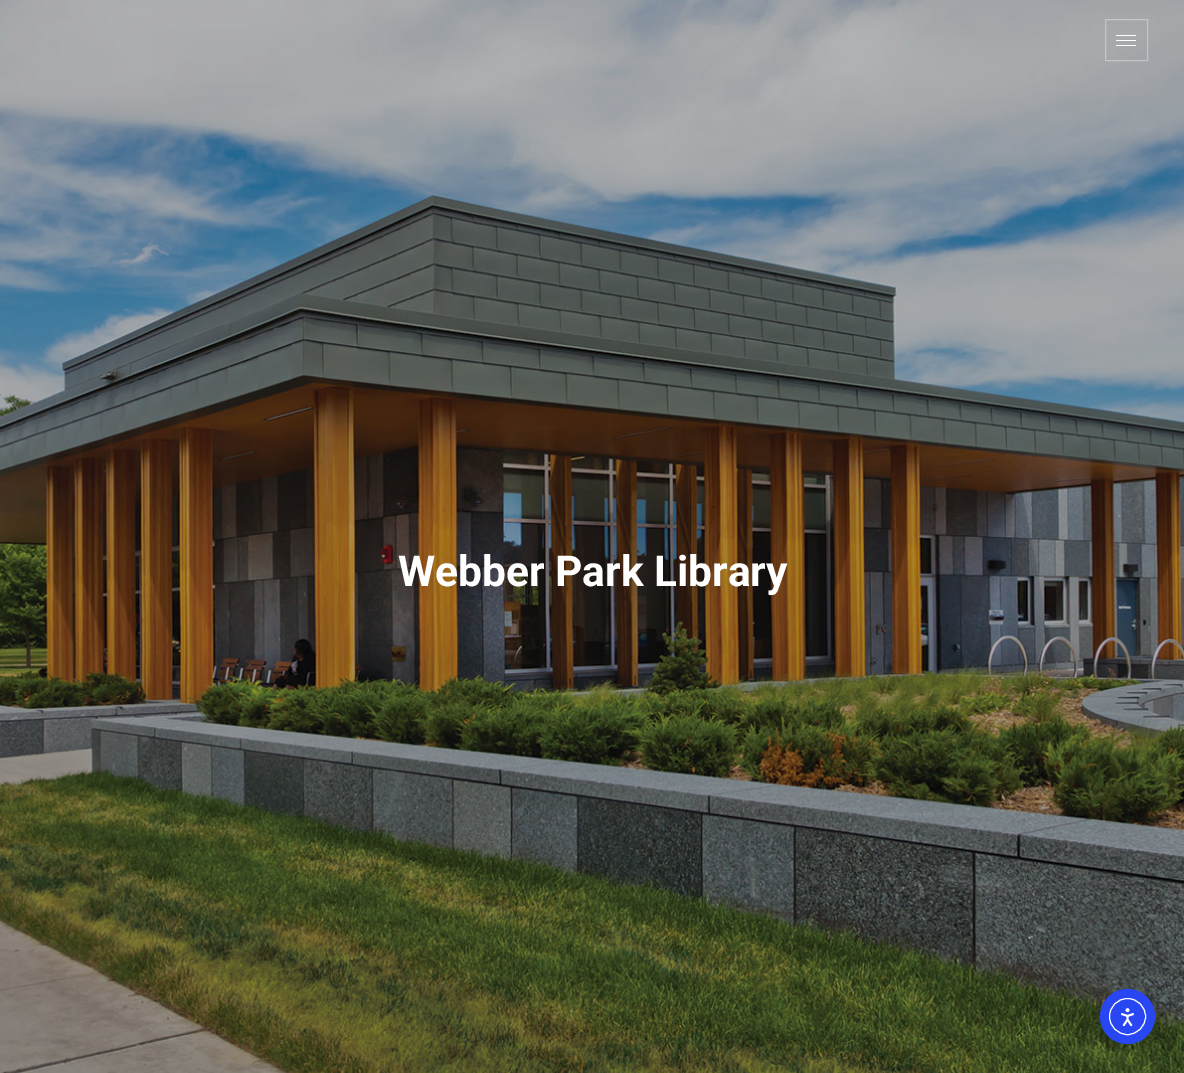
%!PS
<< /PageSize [1184 1073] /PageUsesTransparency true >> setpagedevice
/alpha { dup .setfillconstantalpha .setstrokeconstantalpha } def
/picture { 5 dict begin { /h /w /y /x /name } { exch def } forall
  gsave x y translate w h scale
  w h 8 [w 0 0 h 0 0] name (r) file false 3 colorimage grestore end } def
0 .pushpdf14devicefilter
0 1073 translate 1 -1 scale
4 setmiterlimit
1 setgray
0 0 1184 1073 rectfill
(img1.rgb) 0 0 1184 1073 picture
0.4 alpha
0.949 setgray
1105.5 19.5 42 41 rectstroke
1 alpha
1 setgray
1116 40 20 1 rectfill
1116 35 20 1 rectfill
1116 45 20 1 rectfill
/Roboto-Bold [42.5 0 0 -42.5 0 0] selectfont
398 586 moveto (Webber Park Library) show
0.157 0.278 0.953 setrgbcolor
newpath 1127.5 1016.5 27.5 0 360 arc closepath fill
1 setgray
newpath 1127.5 1016.5 18 0 360 arc closepath stroke
(img2.rgb) 1121 1008 13 19 picture
.poppdf14devicefilter showpage
